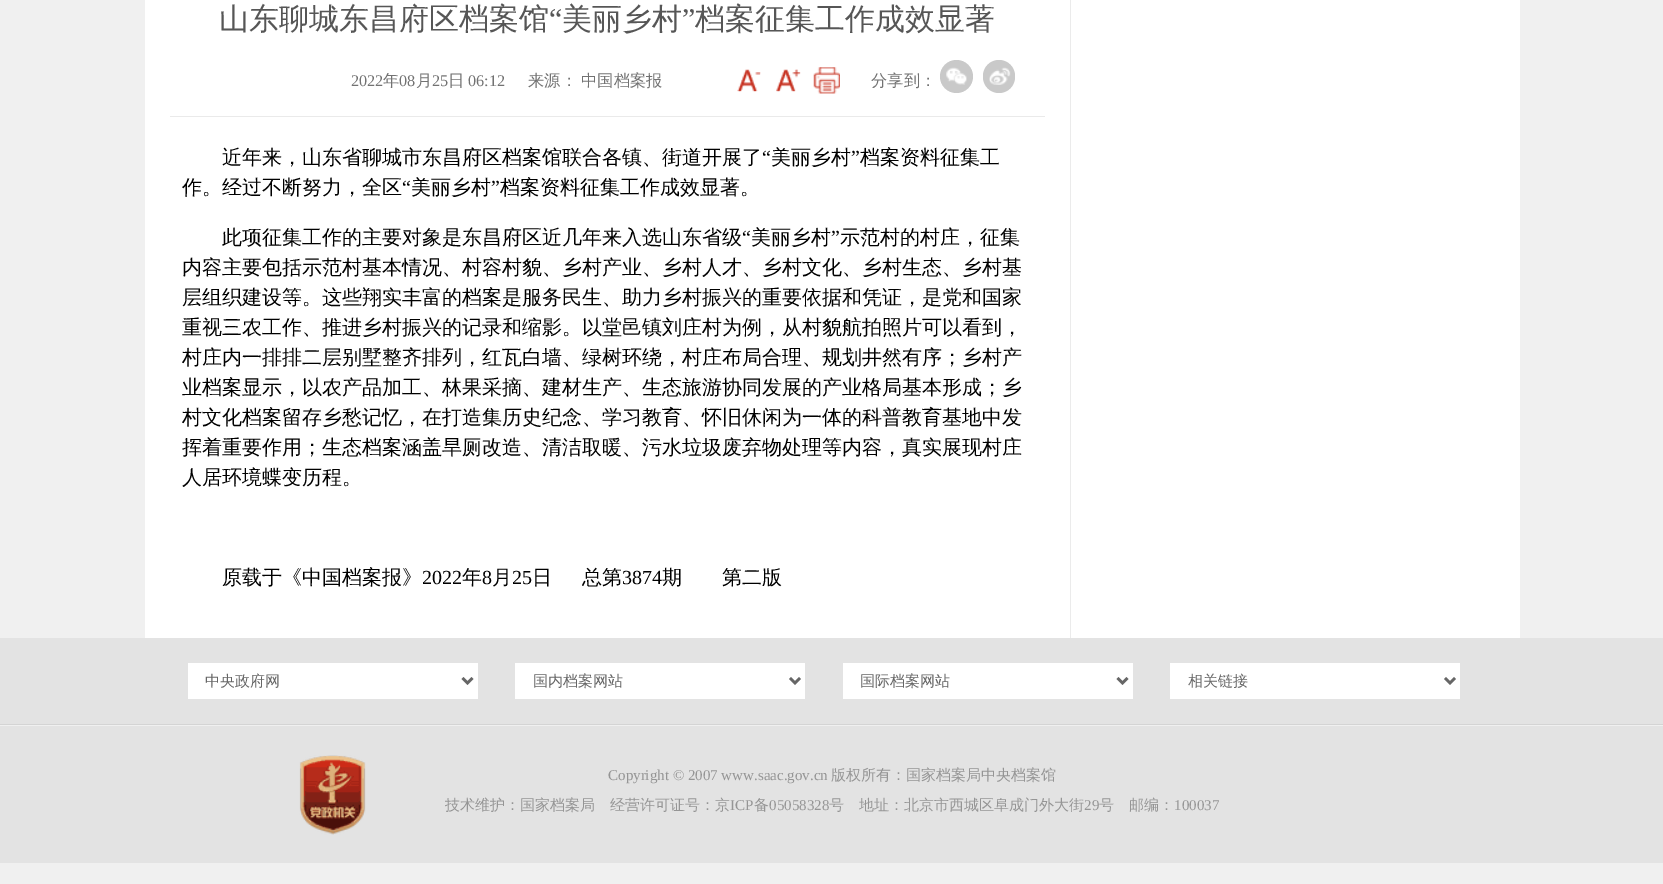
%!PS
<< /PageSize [1663 884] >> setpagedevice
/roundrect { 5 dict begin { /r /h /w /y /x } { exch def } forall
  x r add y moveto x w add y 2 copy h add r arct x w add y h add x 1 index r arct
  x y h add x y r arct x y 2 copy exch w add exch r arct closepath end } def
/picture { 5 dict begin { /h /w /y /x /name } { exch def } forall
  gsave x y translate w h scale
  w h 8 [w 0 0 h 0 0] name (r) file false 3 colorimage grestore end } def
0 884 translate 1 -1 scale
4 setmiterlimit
0.941 setgray
0 0 1663 884 rectfill
1 setgray
145 0 1375 638 rectfill
0.922 setgray
1070 0 1 638 rectfill
/WenQuanYiZenHei-Medium [30 0 0 -30 0 0] selectfont
0.337 setgray
219 29 moveto (山东聊城东昌府区档案馆) show
/LiberationSerif-Regular [30 0 0 -30 0 0] selectfont
549 29 moveto (“) show
/WenQuanYiZenHei-Medium [30 0 0 -30 0 0] selectfont
562 29 moveto (美丽乡村) show
/LiberationSerif-Regular [30 0 0 -30 0 0] selectfont
682 29 moveto (”) show
/WenQuanYiZenHei-Medium [30 0 0 -30 0 0] selectfont
695 29 moveto (档案征集工作成效显著) show
0.918 setgray
170 116 875 1 rectfill
/LiberationSerif-Regular [16.25 0 0 -16.25 0 0] selectfont
0.447 setgray
351 86 moveto (2022) show
/WenQuanYiZenHei-Medium [16.25 0 0 -16.25 0 0] selectfont
383 86 moveto (年) show
/LiberationSerif-Regular [16.25 0 0 -16.25 0 0] selectfont
399 86 moveto (08) show
/WenQuanYiZenHei-Medium [16.25 0 0 -16.25 0 0] selectfont
416 86 moveto (月) show
/LiberationSerif-Regular [16.25 0 0 -16.25 0 0] selectfont
432 86 moveto (25) show
/WenQuanYiZenHei-Medium [16.25 0 0 -16.25 0 0] selectfont
448 86 moveto (日) show
/LiberationSerif-Regular [16.25 0 0 -16.25 0 0] selectfont
468 86 moveto (06:12) show
/WenQuanYiZenHei-Medium [16.25 0 0 -16.25 0 0] selectfont
528 86 moveto (来源：) show
581 86 moveto (中国档案报) show
(img1.rgb) 737 69 24 23 picture
(img2.rgb) 776 69 25 23 picture
(img3.rgb) 813 67 27 27 picture
871 86 moveto (分享到：) show
0.788 setgray
newpath 956.5 76.5 16.5 0 360 arc closepath fill
(img4.rgb) 946 67 21 18 picture
983 60 32 33 16 roundrect fill
(img5.rgb) 989 67 22 18 picture
/WenQuanYiZenHei-Medium [20 0 0 -20 0 0] selectfont
0 setgray
222 164 moveto (近年来，山东省聊城市东昌府区档案馆联合各镇、街道开展了) show
/LiberationSerif-Regular [20 0 0 -20 0 0] selectfont
762 164 moveto (“) show
/WenQuanYiZenHei-Medium [20 0 0 -20 0 0] selectfont
771 164 moveto (美丽乡村) show
/LiberationSerif-Regular [20 0 0 -20 0 0] selectfont
851 164 moveto (”) show
/WenQuanYiZenHei-Medium [20 0 0 -20 0 0] selectfont
860 164 moveto (档案资料征集工) show
182 194 moveto (作。经过不断努力，全区) show
/LiberationSerif-Regular [20 0 0 -20 0 0] selectfont
402 194 moveto (“) show
/WenQuanYiZenHei-Medium [20 0 0 -20 0 0] selectfont
411 194 moveto (美丽乡村) show
/LiberationSerif-Regular [20 0 0 -20 0 0] selectfont
491 194 moveto (”) show
/WenQuanYiZenHei-Medium [20 0 0 -20 0 0] selectfont
500 194 moveto (档案资料征集工作成效显著。) show
222 244 moveto (此项征集工作的主要对象是东昌府区近几年来入选山东省级) show
/LiberationSerif-Regular [20 0 0 -20 0 0] selectfont
742 244 moveto (“) show
/WenQuanYiZenHei-Medium [20 0 0 -20 0 0] selectfont
751 244 moveto (美丽乡村) show
/LiberationSerif-Regular [20 0 0 -20 0 0] selectfont
831 244 moveto (”) show
/WenQuanYiZenHei-Medium [20 0 0 -20 0 0] selectfont
840 244 moveto (示范村的村庄，征集) show
182 274 moveto (内容主要包括示范村基本情况、村容村貌、乡村产业、乡村人才、乡村文化、乡村生态、乡村基) show
182 304 moveto (层组织建设等。这些翔实丰富的档案是服务民生、助力乡村振兴的重要依据和凭证，是党和国家) show
182 334 moveto (重视三农工作、推进乡村振兴的记录和缩影。以堂邑镇刘庄村为例，从村貌航拍照片可以看到，) show
182 364 moveto (村庄内一排排二层别墅整齐排列，红瓦白墙、绿树环绕，村庄布局合理、规划井然有序；乡村产) show
182 394 moveto (业档案显示，以农产品加工、林果采摘、建材生产、生态旅游协同发展的产业格局基本形成；乡) show
182 424 moveto (村文化档案留存乡愁记忆，在打造集历史纪念、学习教育、怀旧休闲为一体的科普教育基地中发) show
182 454 moveto (挥着重要作用；生态档案涵盖旱厕改造、清洁取暖、污水垃圾废弃物处理等内容，真实展现村庄) show
182 484 moveto (人居环境蝶变历程。) show
222 584 moveto (原载于《中国档案报》) show
/LiberationSerif-Regular [20 0 0 -20 0 0] selectfont
422 584 moveto (2022) show
/WenQuanYiZenHei-Medium [20 0 0 -20 0 0] selectfont
462 584 moveto (年) show
/LiberationSerif-Regular [20 0 0 -20 0 0] selectfont
482 584 moveto (8) show
/WenQuanYiZenHei-Medium [20 0 0 -20 0 0] selectfont
492 584 moveto (月) show
/LiberationSerif-Regular [20 0 0 -20 0 0] selectfont
512 584 moveto (25) show
/WenQuanYiZenHei-Medium [20 0 0 -20 0 0] selectfont
532 584 moveto (日) show
582 584 moveto (总第) show
/LiberationSerif-Regular [20 0 0 -20 0 0] selectfont
622 584 moveto (3874) show
/WenQuanYiZenHei-Medium [20 0 0 -20 0 0] selectfont
662 584 moveto (期) show
722 584 moveto (第二版) show
0.89 setgray
0 638 1663 86 rectfill
0.831 setgray
0 724 1663 1 rectfill
1 setgray
188 663 290 36 rectfill
0.4 setgray
2.5 setlinewidth
newpath 462.5 678 moveto 467.5 683 lineto 472.5 678 lineto stroke
/WenQuanYiZenHei-Medium [15 0 0 -15 0 0] selectfont
205 686 moveto (中央政府网) show
1 setgray
515 663 290 36 rectfill
0.4 setgray
newpath 790 678 moveto 795 683 lineto 800 678 lineto stroke
533 686 moveto (国内档案网站) show
1 setgray
843 663 290 36 rectfill
0.4 setgray
newpath 1117.5 678 moveto 1122.5 683 lineto 1127.5 678 lineto stroke
860 686 moveto (国际档案网站) show
1 setgray
1170 663 290 36 rectfill
0.4 setgray
newpath 1445 678 moveto 1450 683 lineto 1455 678 lineto stroke
1188 686 moveto (相关链接) show
0.89 setgray
0 726 1663 137 rectfill
(img6.rgb) 299 755 67 80 picture
/LiberationSerif-Regular [15 0 0 -15 0 0] selectfont
0.584 setgray
608 780 moveto (Copyright © 2007 www.saac.gov.cn) show
/WenQuanYiZenHei-Medium [15 0 0 -15 0 0] selectfont
831 780 moveto (版权所有：国家档案局中央档案馆) show
445 810 moveto (技术维护：国家档案局　经营许可证号：京) show
/LiberationSerif-Regular [15 0 0 -15 0 0] selectfont
730 810 moveto (ICP) show
/WenQuanYiZenHei-Medium [15 0 0 -15 0 0] selectfont
754 810 moveto (备) show
/LiberationSerif-Regular [15 0 0 -15 0 0] selectfont
769 810 moveto (05058328) show
/WenQuanYiZenHei-Medium [15 0 0 -15 0 0] selectfont
829 810 moveto (号) show
859 810 moveto (地址：北京市西城区阜成门外大街) show
/LiberationSerif-Regular [15 0 0 -15 0 0] selectfont
1084 810 moveto (29) show
/WenQuanYiZenHei-Medium [15 0 0 -15 0 0] selectfont
1099 810 moveto (号　邮编：) show
/LiberationSerif-Regular [15 0 0 -15 0 0] selectfont
1174 810 moveto (100037) show
showpage
